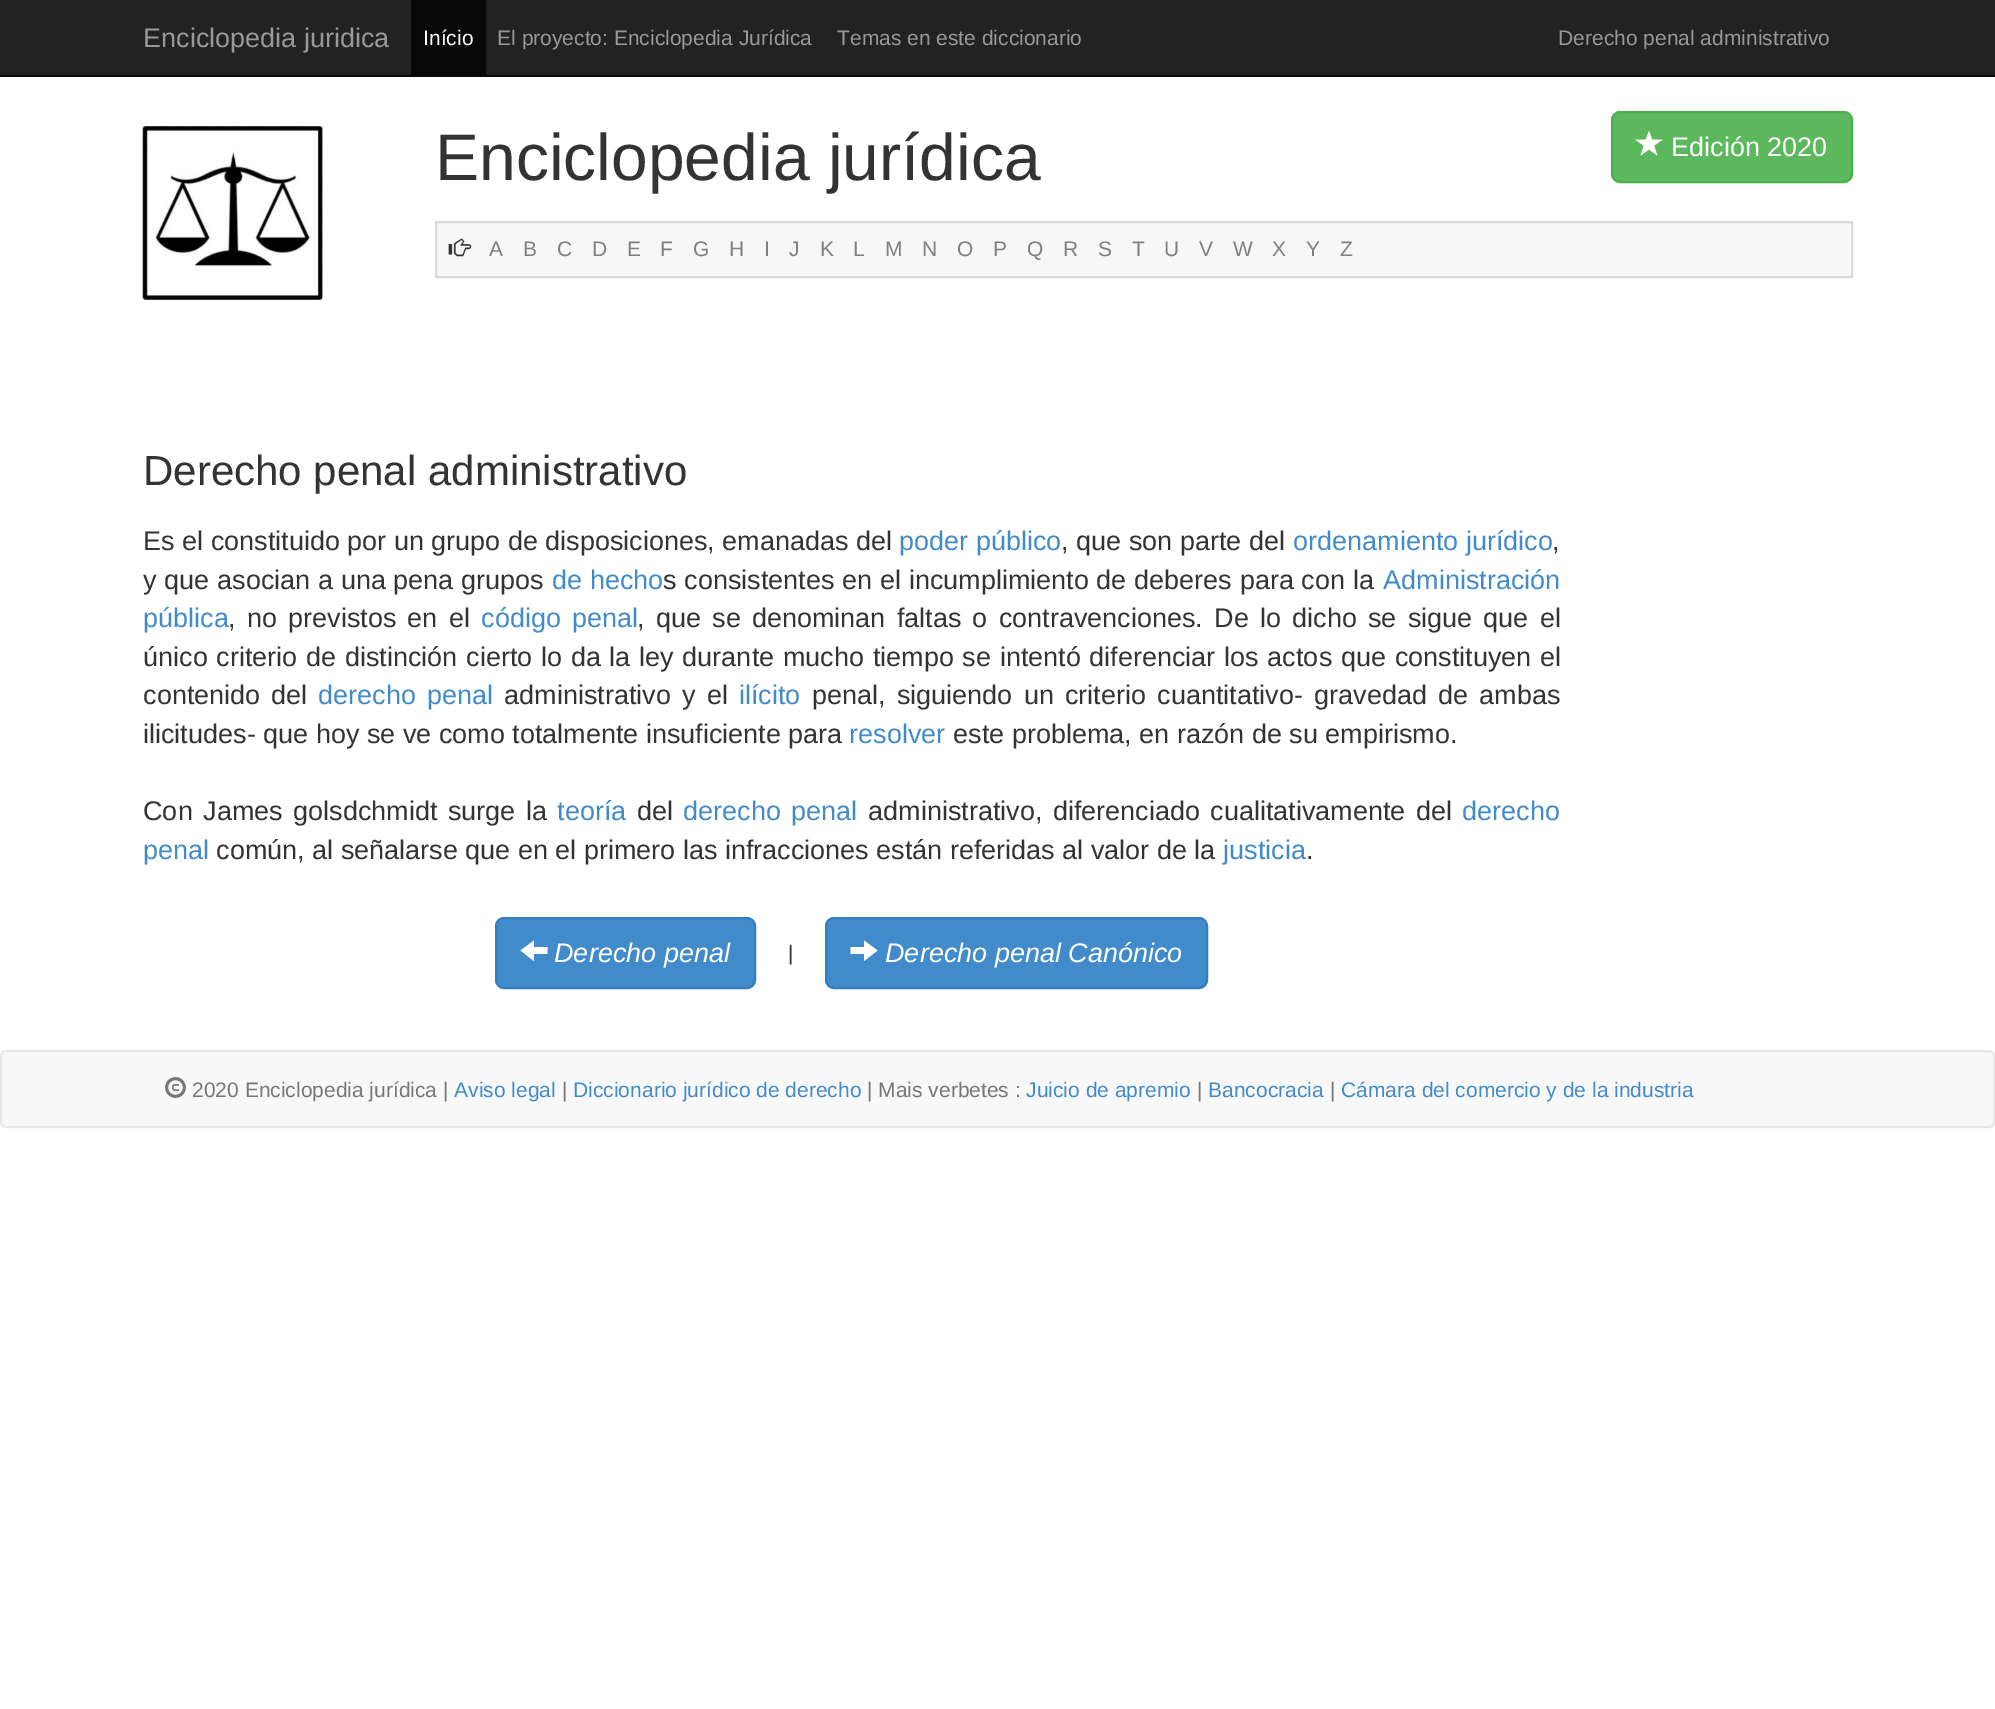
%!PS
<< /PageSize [1995 1709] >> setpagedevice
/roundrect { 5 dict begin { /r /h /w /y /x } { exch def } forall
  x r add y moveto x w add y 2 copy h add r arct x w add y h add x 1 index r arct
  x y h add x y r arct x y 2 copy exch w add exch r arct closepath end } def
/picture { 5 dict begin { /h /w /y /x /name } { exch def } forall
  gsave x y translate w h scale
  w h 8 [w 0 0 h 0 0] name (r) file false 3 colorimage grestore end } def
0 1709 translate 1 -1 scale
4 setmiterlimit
1 setgray
0 0 1995 1709 rectfill
0.133 setgray
0 0 1995 75 rectfill
0.031 setgray
0 75 1995 2 rectfill
/LiberationSans-Regular [27 0 0 -27 0 0] selectfont
0.6 setgray
143 47 moveto (Enciclopedia juridica) show
0.031 setgray
411 0 75 75 rectfill
/LiberationSans-Regular [21 0 0 -21 0 0] selectfont
1 setgray
423 45 moveto (Início) show
0.6 setgray
497 45 moveto (El proyecto: Enciclopedia Jurídica) show
837 45 moveto (Temas en este diccionario) show
1558 45 moveto (Derecho penal administrativo) show
(img1.rgb) 142 126 181 174 picture
/LiberationSans-Regular [66 0 0 -66 0 0] selectfont
0.2 setgray
435 180 moveto (Enciclopedia jurídica) show
0.361 0.722 0.361 setrgbcolor
1612 112 240 70 8 roundrect gsave fill grestore
0.298 0.682 0.298 setrgbcolor
2 setlinewidth
stroke
(img2.rgb) 1635 130 28 26 picture
/LiberationSans-Regular [27 0 0 -27 0 0] selectfont
1 setgray
1671 156 moveto (Edición 2020) show
0.969 setgray
newpath 436 222 moveto 1852 222 lineto 1852 277 lineto 436 277 lineto closepath gsave fill grestore
0.855 setgray
stroke
(img3.rgb) 448 238 24 19 picture
/LiberationSans-Regular [21 0 0 -21 0 0] selectfont
0.502 setgray
489 256 moveto (A) show
523 256 moveto (B) show
557 256 moveto (C) show
592 256 moveto (D) show
627 256 moveto (E) show
660 256 moveto (F) show
693 256 moveto (G) show
729 256 moveto (H) show
764 256 moveto (I) show
789 256 moveto (J) show
820 256 moveto (K) show
853 256 moveto (L) show
885 256 moveto (M) show
922 256 moveto (N) show
957 256 moveto (O) show
993 256 moveto (P) show
1027 256 moveto (Q) show
1063 256 moveto (R) show
1098 256 moveto (S) show
1132 256 moveto (T) show
1164 256 moveto (U) show
1199 256 moveto (V) show
1233 256 moveto (W) show
1272 256 moveto (X) show
1306 256 moveto (Y) show
1340 256 moveto (Z) show
/LiberationSans-Regular [42 0 0 -42 0 0] selectfont
0.2 setgray
143 485 moveto (Derecho penal administrativo) show
/LiberationSans-Regular [27 0 0 -27 0 0] selectfont
143 550 moveto (Es el constituido por un grupo de disposiciones, emanadas del) show
0.259 0.545 0.792 setrgbcolor
899 550 moveto (poder público) show
0.2 setgray
1061 550 moveto (, que son parte del) show
0.259 0.545 0.792 setrgbcolor
1293 550 moveto (ordenamiento jurídico) show
0.2 setgray
1552 550 moveto (,) show
143 589 moveto 0.25 0 32 (y que asocian a una pena grupos) widthshow
0.259 0.545 0.792 setrgbcolor
552 589 moveto (de hecho) show
0.2 setgray
663 589 moveto 0.25 0 32 (s consistentes en el incumplimiento de deberes para con la) widthshow
0.259 0.545 0.792 setrgbcolor
1383 589 moveto (Administración) show
143 627 moveto (pública) show
0.2 setgray
228 627 moveto 3.75 0 32 (, no previstos en el) widthshow
0.259 0.545 0.792 setrgbcolor
481 627 moveto 3.75 0 32 (código penal) widthshow
0.2 setgray
637 627 moveto 3.75 0 32 (, que se denominan faltas o contravenciones. De lo dicho se sigue que el) widthshow
143 666 moveto 1.25 0 32 (único criterio de distinción cierto lo da la ley durante mucho tiempo se intentó diferenciar los actos que constituyen el) widthshow
143 704 moveto 3.75 0 32 (contenido del) widthshow
0.259 0.545 0.792 setrgbcolor
318 704 moveto 4 0 32 (derecho penal) widthshow
0.2 setgray
504 704 moveto 3.75 0 32 (administrativo y el) widthshow
0.259 0.545 0.792 setrgbcolor
739 704 moveto (ilícito) show
0.2 setgray
812 704 moveto 3.75 0 32 (penal, siguiendo un criterio cuantitativo- gravedad de ambas) widthshow
143 743 moveto (ilicitudes- que hoy se ve como totalmente insuficiente para) show
0.259 0.545 0.792 setrgbcolor
849 743 moveto (resolver) show
0.2 setgray
953 743 moveto (este problema, en razón de su empirismo.) show
143 820 moveto 3 0 32 (Con James golsdchmidt surge la) widthshow
0.259 0.545 0.792 setrgbcolor
557 820 moveto (teoría) show
0.2 setgray
637 820 moveto (del) show
0.259 0.545 0.792 setrgbcolor
683 820 moveto 3 0 32 (derecho penal) widthshow
0.2 setgray
868 820 moveto 3 0 32 (administrativo, diferenciado cualitativamente del) widthshow
0.259 0.545 0.792 setrgbcolor
1462 820 moveto (derecho) show
143 859 moveto (penal) show
0.2 setgray
216 859 moveto (común, al señalarse que en el primero las infracciones están referidas al valor de la) show
0.259 0.545 0.792 setrgbcolor
1223 859 moveto (justicia) show
0.2 setgray
1306 859 moveto (.) show
0.259 0.545 0.792 setrgbcolor
496 918 259 70 8 roundrect gsave fill grestore
0.208 0.494 0.741 setrgbcolor
stroke
1 setgray
newpath 547.5 954 moveto 534 954 lineto 534 961 lineto 520.5 950.5 lineto 534 940.5 lineto 534 947 lineto 547.5 947 lineto closepath fill
/LiberationSans-Italic [27 0 0 -27 0 0] selectfont
554 962 moveto (Derecho penal) show
/LiberationSans-Regular [21 0 0 -21 0 0] selectfont
0.2 setgray
788 960 moveto (|) show
0.259 0.545 0.792 setrgbcolor
826 918 381 70 8 roundrect gsave fill grestore
0.208 0.494 0.741 setrgbcolor
stroke
1 setgray
newpath 864 954 moveto 850.5 954 lineto 850.5 947 lineto 864 947 lineto 864 940.5 lineto 877.5 950.5 lineto 864 961 lineto closepath fill
/LiberationSans-Italic [27 0 0 -27 0 0] selectfont
885 962 moveto (Derecho penal Canónico) show
0.973 setgray
1 1051 1993 76 5 roundrect gsave fill grestore
0.906 setgray
stroke
(img4.rgb) 165 1077 21 21 picture
/LiberationSans-Regular [21 0 0 -21 0 0] selectfont
0.467 setgray
192 1097 moveto (2020 Enciclopedia jurídica |) show
0.259 0.545 0.792 setrgbcolor
454 1097 moveto (Aviso legal) show
0.467 setgray
562 1097 moveto (|) show
0.259 0.545 0.792 setrgbcolor
573 1097 moveto (Diccionario jurídico de derecho) show
0.467 setgray
867 1097 moveto (| Mais verbetes :) show
0.259 0.545 0.792 setrgbcolor
1026 1097 moveto (Juicio de apremio) show
0.467 setgray
1197 1097 moveto (|) show
0.259 0.545 0.792 setrgbcolor
1208 1097 moveto (Bancocracia) show
0.467 setgray
1330 1097 moveto (|) show
0.259 0.545 0.792 setrgbcolor
1341 1097 moveto (Cámara del comercio y de la industria) show
showpage
